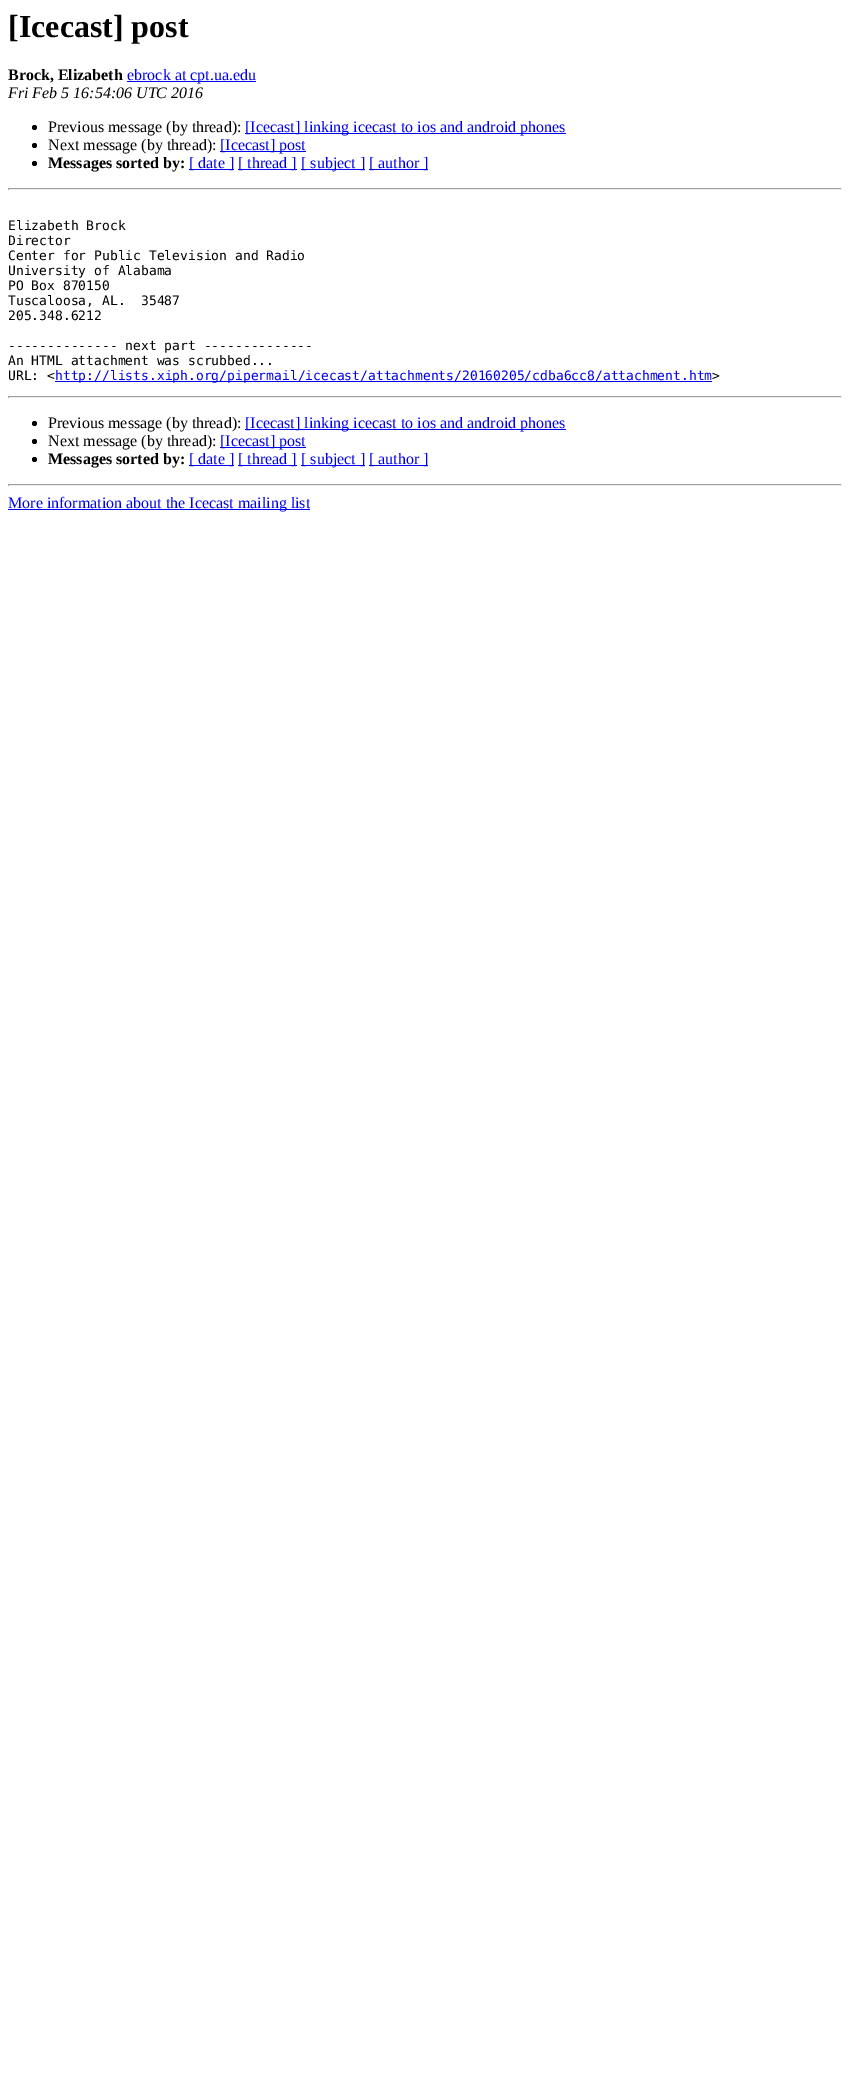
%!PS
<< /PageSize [850 2094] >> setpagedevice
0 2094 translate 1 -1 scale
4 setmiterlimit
1 setgray
0 0 850 2094 rectfill
/LiberationSerif-Bold [32 0 0 -32 0 0] selectfont
0 setgray
8 37 moveto ([Icecast] post) show
/LiberationSerif-Bold [16 0 0 -16 0 0] selectfont
8 80 moveto (Brock, Elizabeth) show
0 0 0.933 setrgbcolor
127 81 129 1 rectfill
/LiberationSerif-Regular [16 0 0 -16 0 0] selectfont
127 80 moveto (ebrock at cpt.ua.edu) show
/LiberationSerif-Italic [16 0 0 -16 0 0] selectfont
0 setgray
8 98 moveto (Fri Feb 5 16:54:06 UTC 2016) show
newpath 34.5 127.5 2.5 0 360 arc closepath fill
/LiberationSerif-Regular [16 0 0 -16 0 0] selectfont
48 132 moveto (Previous message \(by thread\):) show
0 0 0.933 setrgbcolor
245 133 321 1 rectfill
245 132 moveto ([Icecast] linking icecast to ios and android phones) show
0 setgray
newpath 34.5 145.5 2.5 0 360 arc closepath fill
48 150 moveto (Next message \(by thread\):) show
0 0 0.933 setrgbcolor
220 151 86 1 rectfill
220 150 moveto ([Icecast] post) show
0 setgray
newpath 34.5 163.5 2.5 0 360 arc closepath fill
/LiberationSerif-Bold [16 0 0 -16 0 0] selectfont
48 168 moveto (Messages sorted by:) show
0 0 0.933 setrgbcolor
189 169 45 1 rectfill
/LiberationSerif-Regular [16 0 0 -16 0 0] selectfont
189 168 moveto ([ date ]) show
238 169 59 1 rectfill
238 168 moveto ([ thread ]) show
301 169 64 1 rectfill
301 168 moveto ([ subject ]) show
369 169 59 1 rectfill
369 168 moveto ([ author ]) show
0.624 setgray
8 188 834 1 rectfill
0.933 setgray
841 188 1 2 rectfill
8 189 834 1 rectfill
0.624 setgray
8 188 1 2 rectfill
/DejaVuSansMono-Regular [13 0 0 -13 0 0] selectfont
0 setgray
8 230 moveto (Elizabeth Brock) show
8 245 moveto (Director) show
8 260 moveto (Center for Public Television and Radio) show
8 275 moveto (University of Alabama) show
8 290 moveto (PO Box 870150) show
8 305 moveto (Tuscaloosa, AL.  35487) show
8 320 moveto (205.348.6212) show
8 350 moveto (-------------- next part --------------) show
8 365 moveto (An HTML attachment was scrubbed...) show
8 380 moveto (URL: <) show
0 0 0.933 setrgbcolor
55 381 657 1 rectfill
55 380 moveto (http://lists.xiph.org/pipermail/icecast/attachments/20160205/cdba6cc8/attachment.htm) show
0 setgray
712 380 moveto (>) show
0.624 setgray
8 396 834 1 rectfill
0.933 setgray
841 396 1 2 rectfill
8 397 834 1 rectfill
0.624 setgray
8 396 1 2 rectfill
0 setgray
newpath 34.5 423.5 2.5 0 360 arc closepath fill
/LiberationSerif-Regular [16 0 0 -16 0 0] selectfont
48 428 moveto (Previous message \(by thread\):) show
0 0 0.933 setrgbcolor
245 429 321 1 rectfill
245 428 moveto ([Icecast] linking icecast to ios and android phones) show
0 setgray
newpath 34.5 441.5 2.5 0 360 arc closepath fill
48 446 moveto (Next message \(by thread\):) show
0 0 0.933 setrgbcolor
220 447 86 1 rectfill
220 446 moveto ([Icecast] post) show
0 setgray
newpath 34.5 459.5 2.5 0 360 arc closepath fill
/LiberationSerif-Bold [16 0 0 -16 0 0] selectfont
48 464 moveto (Messages sorted by:) show
0 0 0.933 setrgbcolor
189 465 45 1 rectfill
/LiberationSerif-Regular [16 0 0 -16 0 0] selectfont
189 464 moveto ([ date ]) show
238 465 59 1 rectfill
238 464 moveto ([ thread ]) show
301 465 64 1 rectfill
301 464 moveto ([ subject ]) show
369 465 59 1 rectfill
369 464 moveto ([ author ]) show
0.624 setgray
8 484 834 1 rectfill
0.933 setgray
841 484 1 2 rectfill
8 485 834 1 rectfill
0.624 setgray
8 484 1 2 rectfill
0 0 0.933 setrgbcolor
8 509 302 1 rectfill
8 508 moveto (More information about the Icecast mailing list) show
showpage
